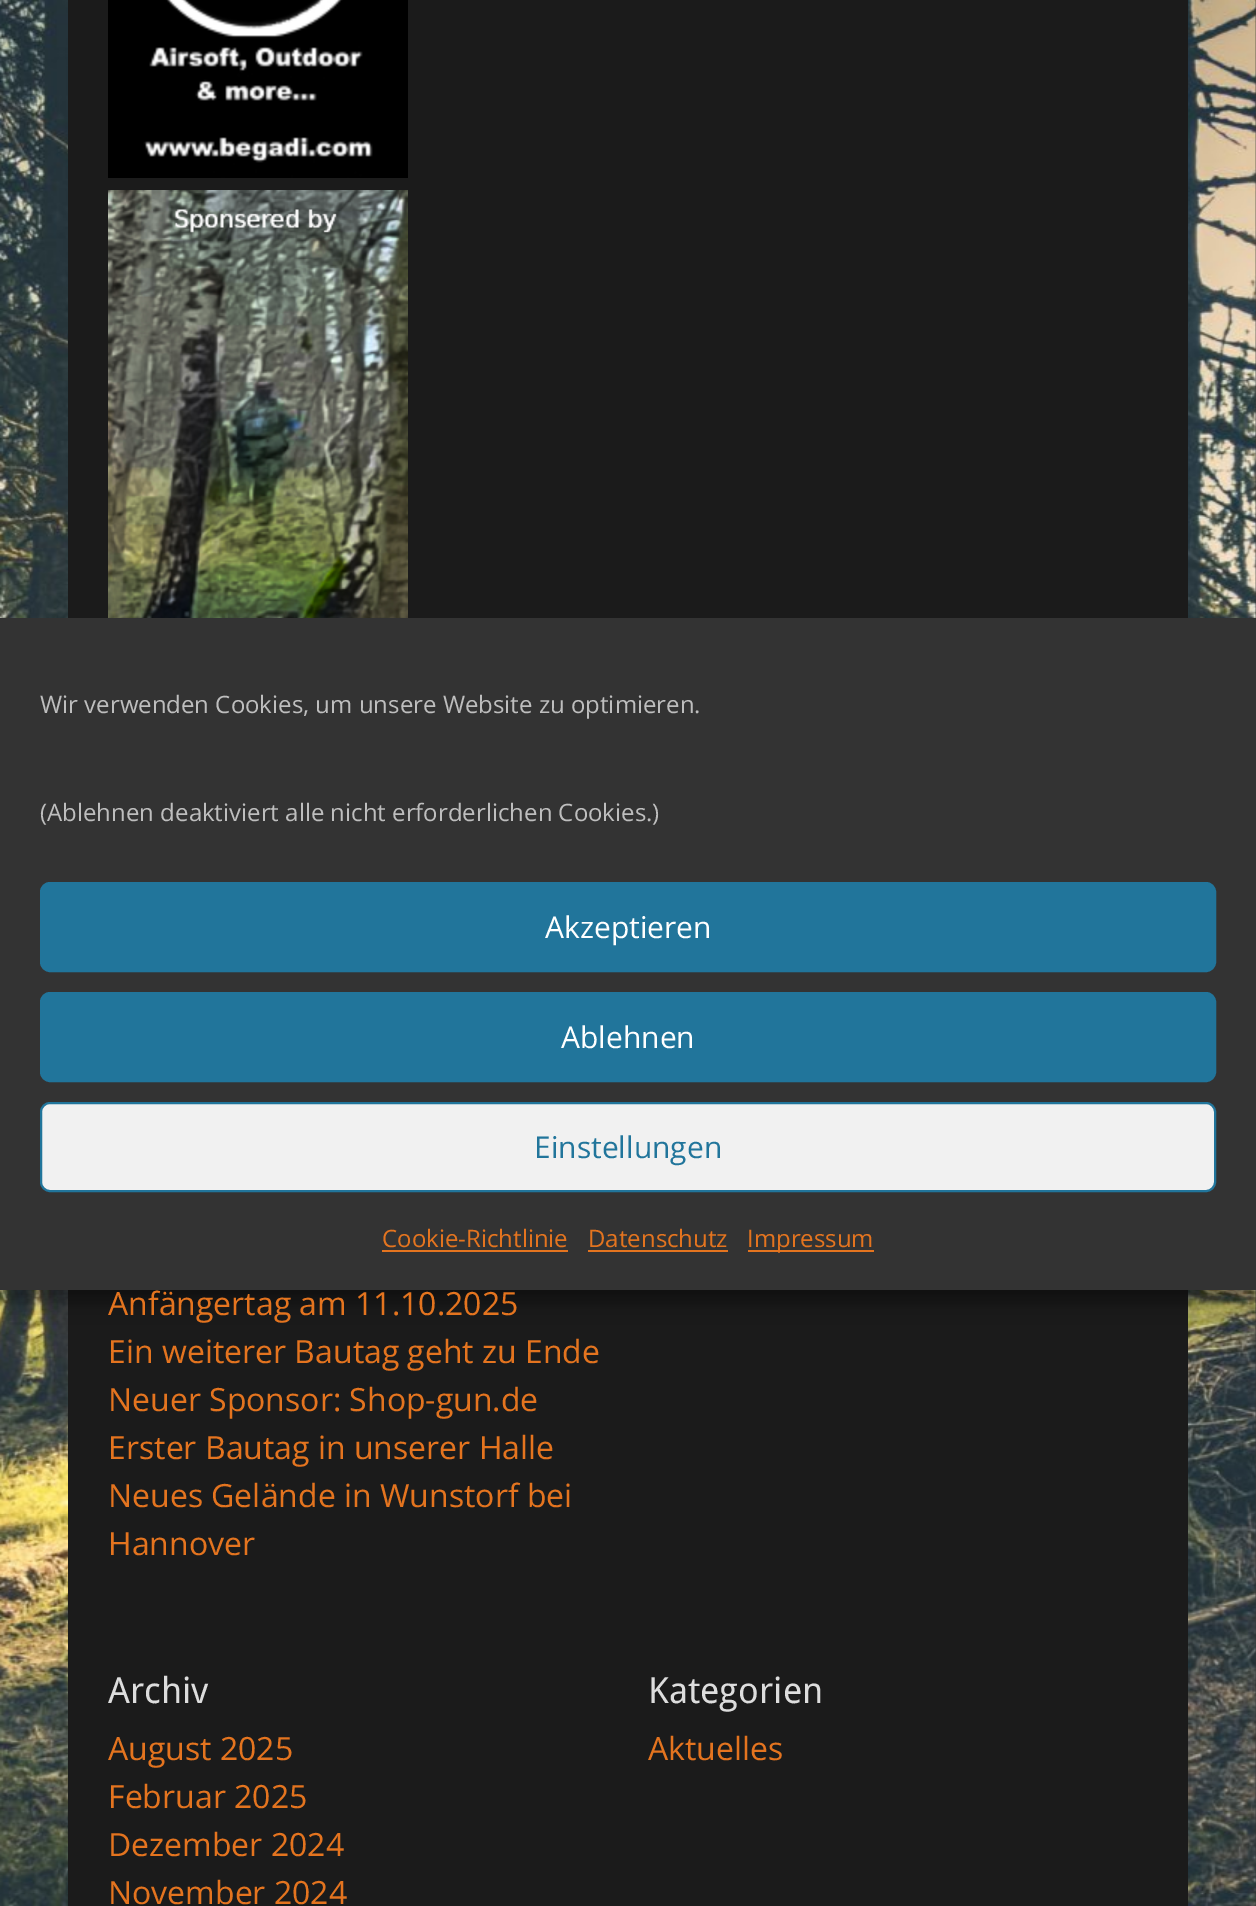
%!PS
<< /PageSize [1256 1906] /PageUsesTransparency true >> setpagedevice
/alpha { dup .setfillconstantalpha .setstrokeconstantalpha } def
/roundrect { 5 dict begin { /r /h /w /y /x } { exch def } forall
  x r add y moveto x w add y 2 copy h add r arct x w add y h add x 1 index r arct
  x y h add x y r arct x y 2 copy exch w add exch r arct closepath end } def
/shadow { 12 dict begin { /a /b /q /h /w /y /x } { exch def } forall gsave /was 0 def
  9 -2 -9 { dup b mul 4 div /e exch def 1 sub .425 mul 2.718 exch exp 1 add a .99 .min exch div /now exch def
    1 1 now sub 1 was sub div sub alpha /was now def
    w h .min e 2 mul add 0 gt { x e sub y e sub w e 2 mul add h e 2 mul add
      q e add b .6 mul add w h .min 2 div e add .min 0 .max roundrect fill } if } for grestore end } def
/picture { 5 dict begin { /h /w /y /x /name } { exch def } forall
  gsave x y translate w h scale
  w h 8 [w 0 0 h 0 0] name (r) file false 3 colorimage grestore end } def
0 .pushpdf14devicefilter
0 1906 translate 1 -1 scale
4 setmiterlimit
0.2 setgray
0 0 1256 1906 rectfill
(img1.rgb) 0 0 1256 1906 picture
0.106 setgray
68 0 1120 1906 rectfill
(img3.rgb) 108 190 300 428 picture
0 setgray
0 630 1256 672 0 6 0.23 shadow
0 638 1256 672 0 20 0.19 shadow
0.2 setgray
0 618 1256 672 rectfill
/OpenSans-Regular [24 0 0 -24 0 0] selectfont
0.745 setgray
40 713 moveto (Wir verwenden Cookies, um unsere Website zu optimieren.) show
40 821 moveto (\(Ablehnen deaktiviert alle nicht erforderlichen Cookies.\)) show
0.129 0.459 0.608 setrgbcolor
41 883 1174 88 9 roundrect gsave fill grestore
2 setlinewidth
stroke
/OpenSans-Regular [30 0 0 -30 0 0] selectfont
1 setgray
545 938 moveto (Akzeptieren) show
0.129 0.459 0.608 setrgbcolor
41 993 1174 88 9 roundrect gsave fill grestore
stroke
1 setgray
561 1048 moveto (Ablehnen) show
0.945 setgray
41 1103 1174 88 9 roundrect gsave fill grestore
0.129 0.459 0.608 setrgbcolor
stroke
534 1158 moveto (Einstellungen) show
/OpenSans-Regular [24 0 0 -24 0 0] selectfont
0.894 0.455 0.122 setrgbcolor
382 1247 moveto (Cookie-Richtlinie) show
382 1250 186 2 rectfill
588 1247 moveto (Datenschutz) show
588 1250 140 2 rectfill
748 1250 126 2 rectfill
747 1247 moveto (Impressum) show
(img2.rgb) 108 0 300 178 picture
/OpenSans-Regular [32 0 0 -32 0 0] selectfont
108 1315 moveto (Anfängertag am 11.10.2025) show
108 1363 moveto (Ein weiterer Bautag geht zu Ende) show
108 1411 moveto (Neuer Sponsor: Shop-gun.de) show
108 1459 moveto (Erster Bautag in unserer Halle) show
108 1507 moveto (Neues Gelände in Wunstorf bei) show
108 1555 moveto (Hannover) show
/DroidSans-Regular [36 0 0 -36 0 0] selectfont
0.867 setgray
108 1703 moveto (Archiv) show
/OpenSans-Regular [32 0 0 -32 0 0] selectfont
0.894 0.455 0.122 setrgbcolor
108 1760 moveto (August 2025) show
108 1808 moveto (Februar 2025) show
108 1856 moveto (Dezember 2024) show
108 1904 moveto (November 2024) show
/DroidSans-Regular [36 0 0 -36 0 0] selectfont
0.867 setgray
648 1703 moveto (Kategorien) show
/OpenSans-Regular [32 0 0 -32 0 0] selectfont
0.894 0.455 0.122 setrgbcolor
648 1760 moveto (Aktuelles) show
.poppdf14devicefilter showpage
